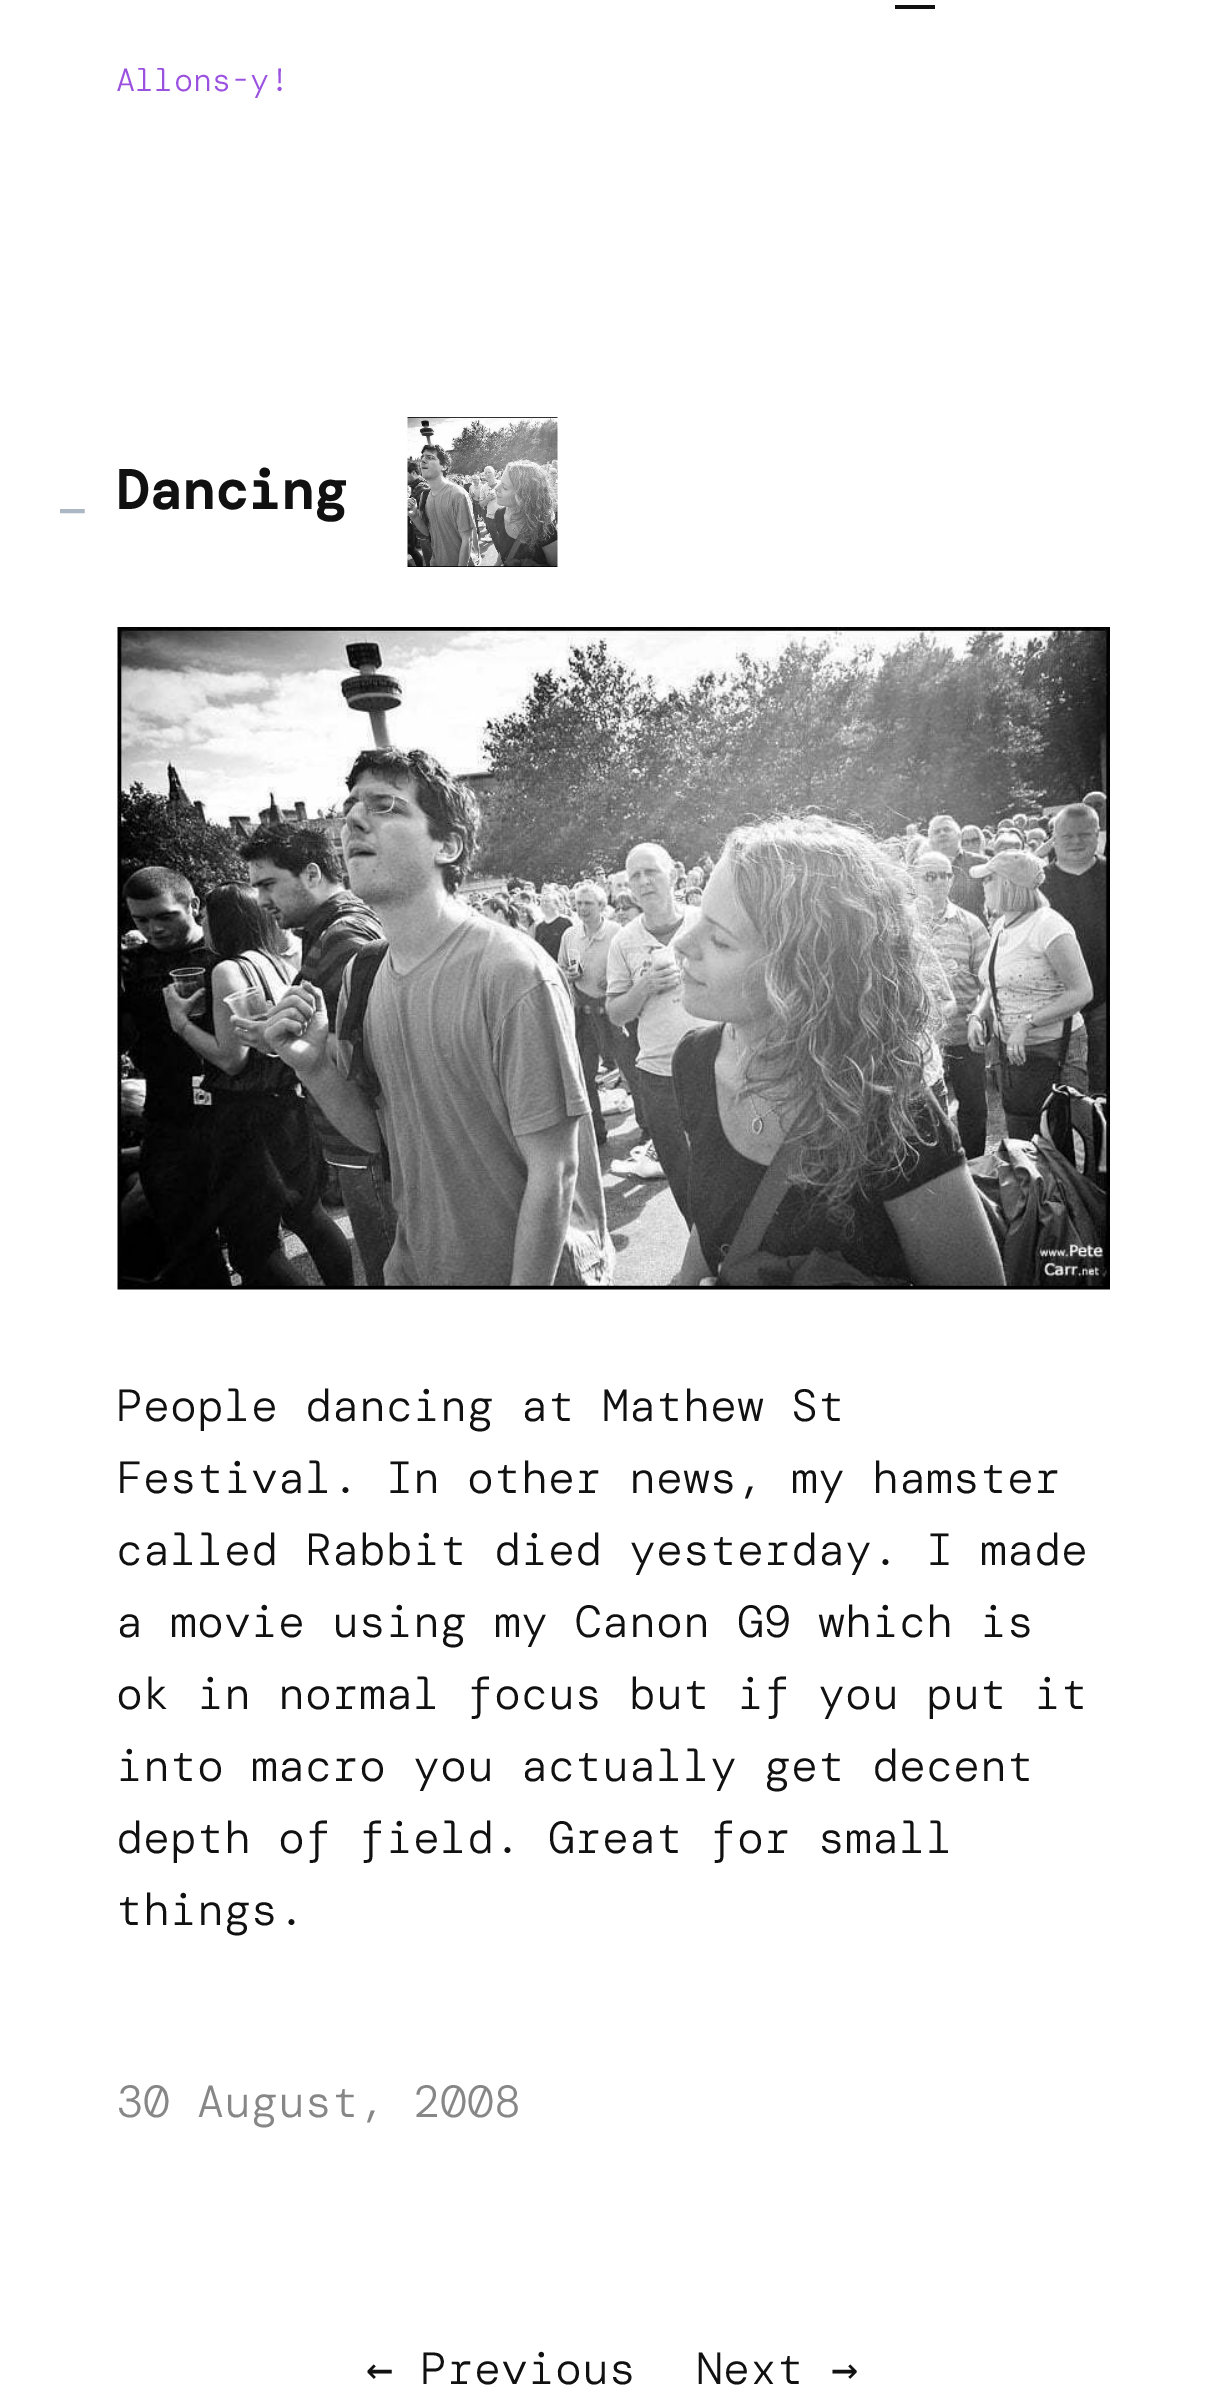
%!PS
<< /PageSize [1223 2385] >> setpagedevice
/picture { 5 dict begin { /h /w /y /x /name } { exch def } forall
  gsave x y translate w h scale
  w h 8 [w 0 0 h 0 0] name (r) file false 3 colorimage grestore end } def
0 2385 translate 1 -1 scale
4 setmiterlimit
1 setgray
0 0 1223 2385 rectfill
0.067 setgray
895 5 40 4 rectfill
/DMMono-Light [32 0 0 -32 0 0] selectfont
0.608 0.318 0.878 setrgbcolor
116 91 moveto (Allons-y!) show
/DMMono-Regular [55 0 0 -55 0 0] selectfont
0.671 0.722 0.765 setrgbcolor
56 509 moveto (_) show
/DMMono-Bold [55 0 0 -55 0 0] selectfont
0.067 setgray
116 509 moveto (Dancing) show
(img1.rgb) 407 417 151 150 picture
(img2.rgb) 117 627 993 663 picture
/DMMono-Light [45 0 0 -45 0 0] selectfont
116 1421 moveto (People dancing at Mathew St) show
116 1493 moveto (Festival. In other news, my hamster) show
116 1565 moveto (called Rabbit died yesterday. I made) show
116 1637 moveto (a movie using my Canon G9 which is) show
116 1709 moveto (ok in normal focus but if you put it) show
116 1781 moveto (into macro you actually get decent) show
116 1853 moveto (depth of field. Great for small) show
116 1925 moveto (things.) show
0.529 setgray
116 2117 moveto (30 August, 2008) show
/DejaVuSansMono-Regular [45 0 0 -45 0 0] selectfont
0.067 setgray
366 2384 moveto (←) show
/DMMono-Light [45 0 0 -45 0 0] selectfont
420 2384 moveto (Previous) show
696 2384 moveto (Next) show
/DejaVuSansMono-Regular [45 0 0 -45 0 0] selectfont
831 2384 moveto (→) show
showpage
